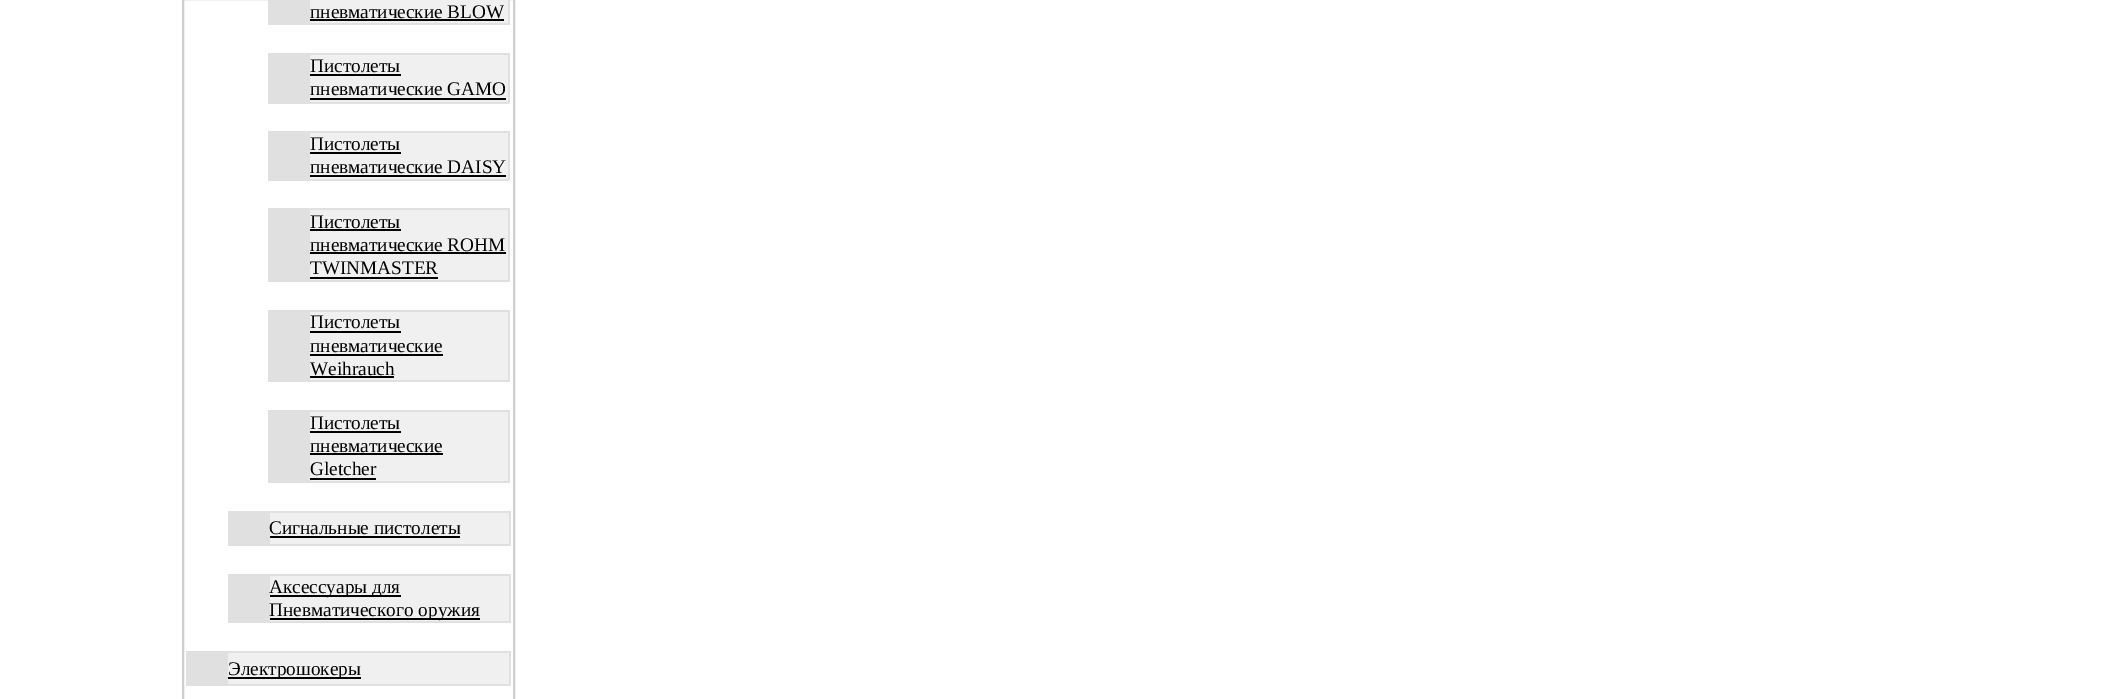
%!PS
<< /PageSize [2114 699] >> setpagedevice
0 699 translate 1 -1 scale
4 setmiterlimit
1 setgray
0 0 2114 699 rectfill
0.808 setgray
2 setlinewidth
183 -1 331 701 rectstroke
0.878 setgray
270 0 40 23 rectfill
508 0 2 25 rectfill
268 23 241 2 rectfill
268 0 2 25 rectfill
0.941 setgray
310 0 198 23 rectfill
/LiberationSerif-Regular [19.25 0 0 -19.25 0 0] selectfont
0 setgray
310 18 moveto (пневматические BLOW) show
310 19 194 2 rectfill
0.878 setgray
270 55 40 47 rectfill
268 53 241 2 rectfill
508 53 2 50 rectfill
268 102 241 2 rectfill
268 53 2 50 rectfill
0.941 setgray
310 55 198 47 rectfill
0 setgray
310 72 moveto (Пистолеты) show
310 74 91 2 rectfill
310 95 moveto (пневматические GAMO) show
310 98 196 2 rectfill
0.878 setgray
270 133 40 46 rectfill
268 131 241 2 rectfill
508 131 2 49 rectfill
268 179 241 2 rectfill
268 131 2 49 rectfill
0.941 setgray
310 133 198 46 rectfill
0 setgray
310 150 moveto (Пистолеты) show
310 152 91 2 rectfill
310 173 moveto (пневматические DAISY) show
310 175 196 2 rectfill
0.878 setgray
270 210 40 70 rectfill
268 208 241 2 rectfill
508 208 2 74 rectfill
268 280 241 2 rectfill
268 208 2 74 rectfill
0.941 setgray
310 210 198 70 rectfill
0 setgray
310 228 moveto (Пистолеты) show
310 229 91 2 rectfill
310 251 moveto (пневматические ROHM) show
310 252 196 2 rectfill
310 274 moveto (TWINMASTER) show
310 277 128 2 rectfill
0.878 setgray
270 312 40 68 rectfill
268 310 241 2 rectfill
508 310 2 72 rectfill
268 380 241 2 rectfill
268 310 2 72 rectfill
0.941 setgray
310 312 198 68 rectfill
0 setgray
310 328 moveto (Пистолеты) show
310 331 91 2 rectfill
310 352 moveto (пневматические) show
310 354 133 2 rectfill
310 375 moveto (Weihrauch) show
310 376 84 2 rectfill
0.878 setgray
270 412 40 69 rectfill
268 410 241 2 rectfill
508 410 2 73 rectfill
268 481 241 2 rectfill
268 410 2 73 rectfill
0.941 setgray
310 412 198 69 rectfill
0 setgray
310 429 moveto (Пистолеты) show
310 431 91 2 rectfill
310 452 moveto (пневматические) show
310 453 133 2 rectfill
310 475 moveto (Gletcher) show
310 478 66 2 rectfill
0.878 setgray
228 511 40 33 rectfill
268 511 243 2 rectfill
509 511 2 35 rectfill
268 544 243 2 rectfill
268 511 2 35 rectfill
228 544 42 2 rectfill
0.941 setgray
270 513 239 31 rectfill
0 setgray
269 534 moveto (Сигнальные пистолеты) show
270 536 190 2 rectfill
0.878 setgray
228 574 40 49 rectfill
0.941 setgray
270 576 239 45 rectfill
0.878 setgray
268 574 243 2 rectfill
509 574 2 49 rectfill
268 621 243 2 rectfill
268 574 2 49 rectfill
0 setgray
270 595 131 2 rectfill
269 593 moveto (Аксессуары для) show
270 618 210 2 rectfill
269 616 moveto (Пневматического оружия) show
0.878 setgray
188 653 40 31 rectfill
186 651 325 2 rectfill
509 651 2 35 rectfill
186 684 325 2 rectfill
186 651 2 35 rectfill
0.941 setgray
228 653 281 31 rectfill
0 setgray
228 677 133 2 rectfill
228 675 moveto (Электрошокеры) show
showpage
